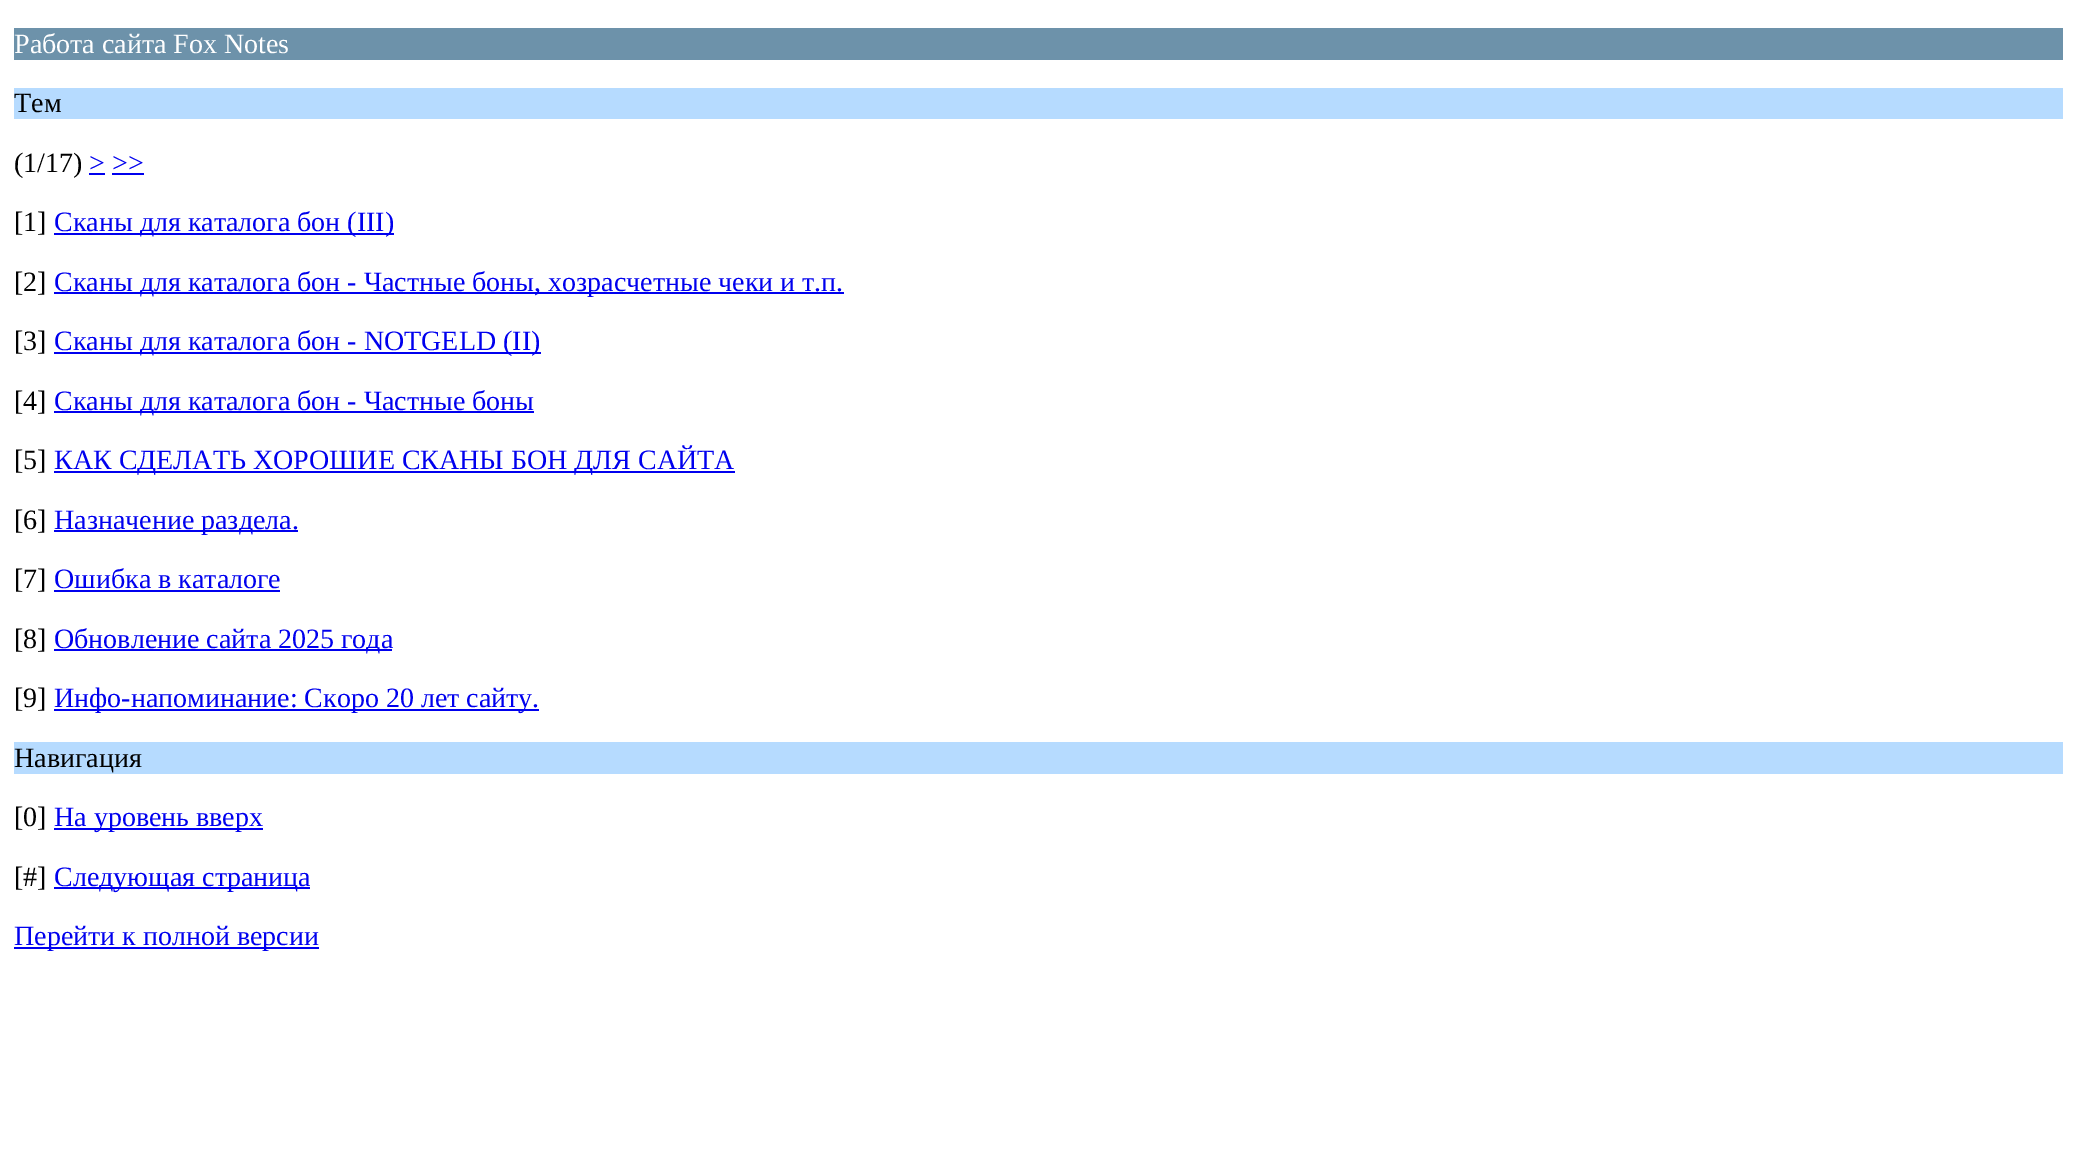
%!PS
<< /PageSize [2077 1152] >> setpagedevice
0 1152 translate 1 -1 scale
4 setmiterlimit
1 setgray
0 0 2077 1152 rectfill
0.427 0.573 0.667 setrgbcolor
14 28 2049 32 rectfill
/LiberationSerif-Regular [28 0 0 -28 0 0] selectfont
1 setgray
14 53 moveto (Работа сайта Fox Notes) show
0.714 0.859 1 setrgbcolor
14 88 2049 31 rectfill
0 setgray
14 112 moveto (Тем) show
14 172 moveto (\(1/17\)) show
0 0 0.933 setrgbcolor
89 172 moveto (> >>) show
89 173 16 2 rectfill
112 173 32 2 rectfill
0 setgray
14 231 moveto ([1]) show
0 0 0.933 setrgbcolor
54 233 340 2 rectfill
54 231 moveto (Сканы для каталога бон \(III\)) show
0 setgray
14 291 moveto ([2]) show
0 0 0.933 setrgbcolor
54 292 790 2 rectfill
54 291 moveto (Сканы для каталога бон - Частные боны, хозрасчетные чеки и т.п.) show
0 setgray
14 350 moveto ([3]) show
0 0 0.933 setrgbcolor
54 352 487 2 rectfill
54 350 moveto (Сканы для каталога бон - NOTGELD \(II\)) show
0 setgray
14 410 moveto ([4]) show
0 0 0.933 setrgbcolor
54 411 480 2 rectfill
54 410 moveto (Сканы для каталога бон - Частные боны) show
0 setgray
14 469 moveto ([5]) show
0 0 0.933 setrgbcolor
54 471 681 2 rectfill
54 469 moveto (КАК СДЕЛАТЬ ХОРОШИЕ СКАНЫ БОН ДЛЯ САЙТА) show
0 setgray
14 529 moveto ([6]) show
0 0 0.933 setrgbcolor
54 530 244 2 rectfill
54 529 moveto (Назначение раздела.) show
0 setgray
14 588 moveto ([7]) show
0 0 0.933 setrgbcolor
54 588 moveto (Ошибка в каталоге) show
54 590 226 2 rectfill
0 setgray
14 648 moveto ([8]) show
0 0 0.933 setrgbcolor
54 649 338 2 rectfill
54 648 moveto (Обновление сайта 2025 года) show
0 setgray
14 707 moveto ([9]) show
0 0 0.933 setrgbcolor
54 709 485 2 rectfill
54 707 moveto (Инфо-напоминание: Скоро 20 лет сайту.) show
0.714 0.859 1 setrgbcolor
14 742 2049 32 rectfill
0 setgray
14 767 moveto (Навигация) show
14 826 moveto ([0]) show
0 0 0.933 setrgbcolor
54 828 209 2 rectfill
54 826 moveto (На уровень вверх) show
0 setgray
14 886 moveto ([#]) show
0 0 0.933 setrgbcolor
54 887 256 2 rectfill
54 886 moveto (Следующая страница) show
14 947 305 2 rectfill
14 945 moveto (Перейти к полной версии) show
showpage
